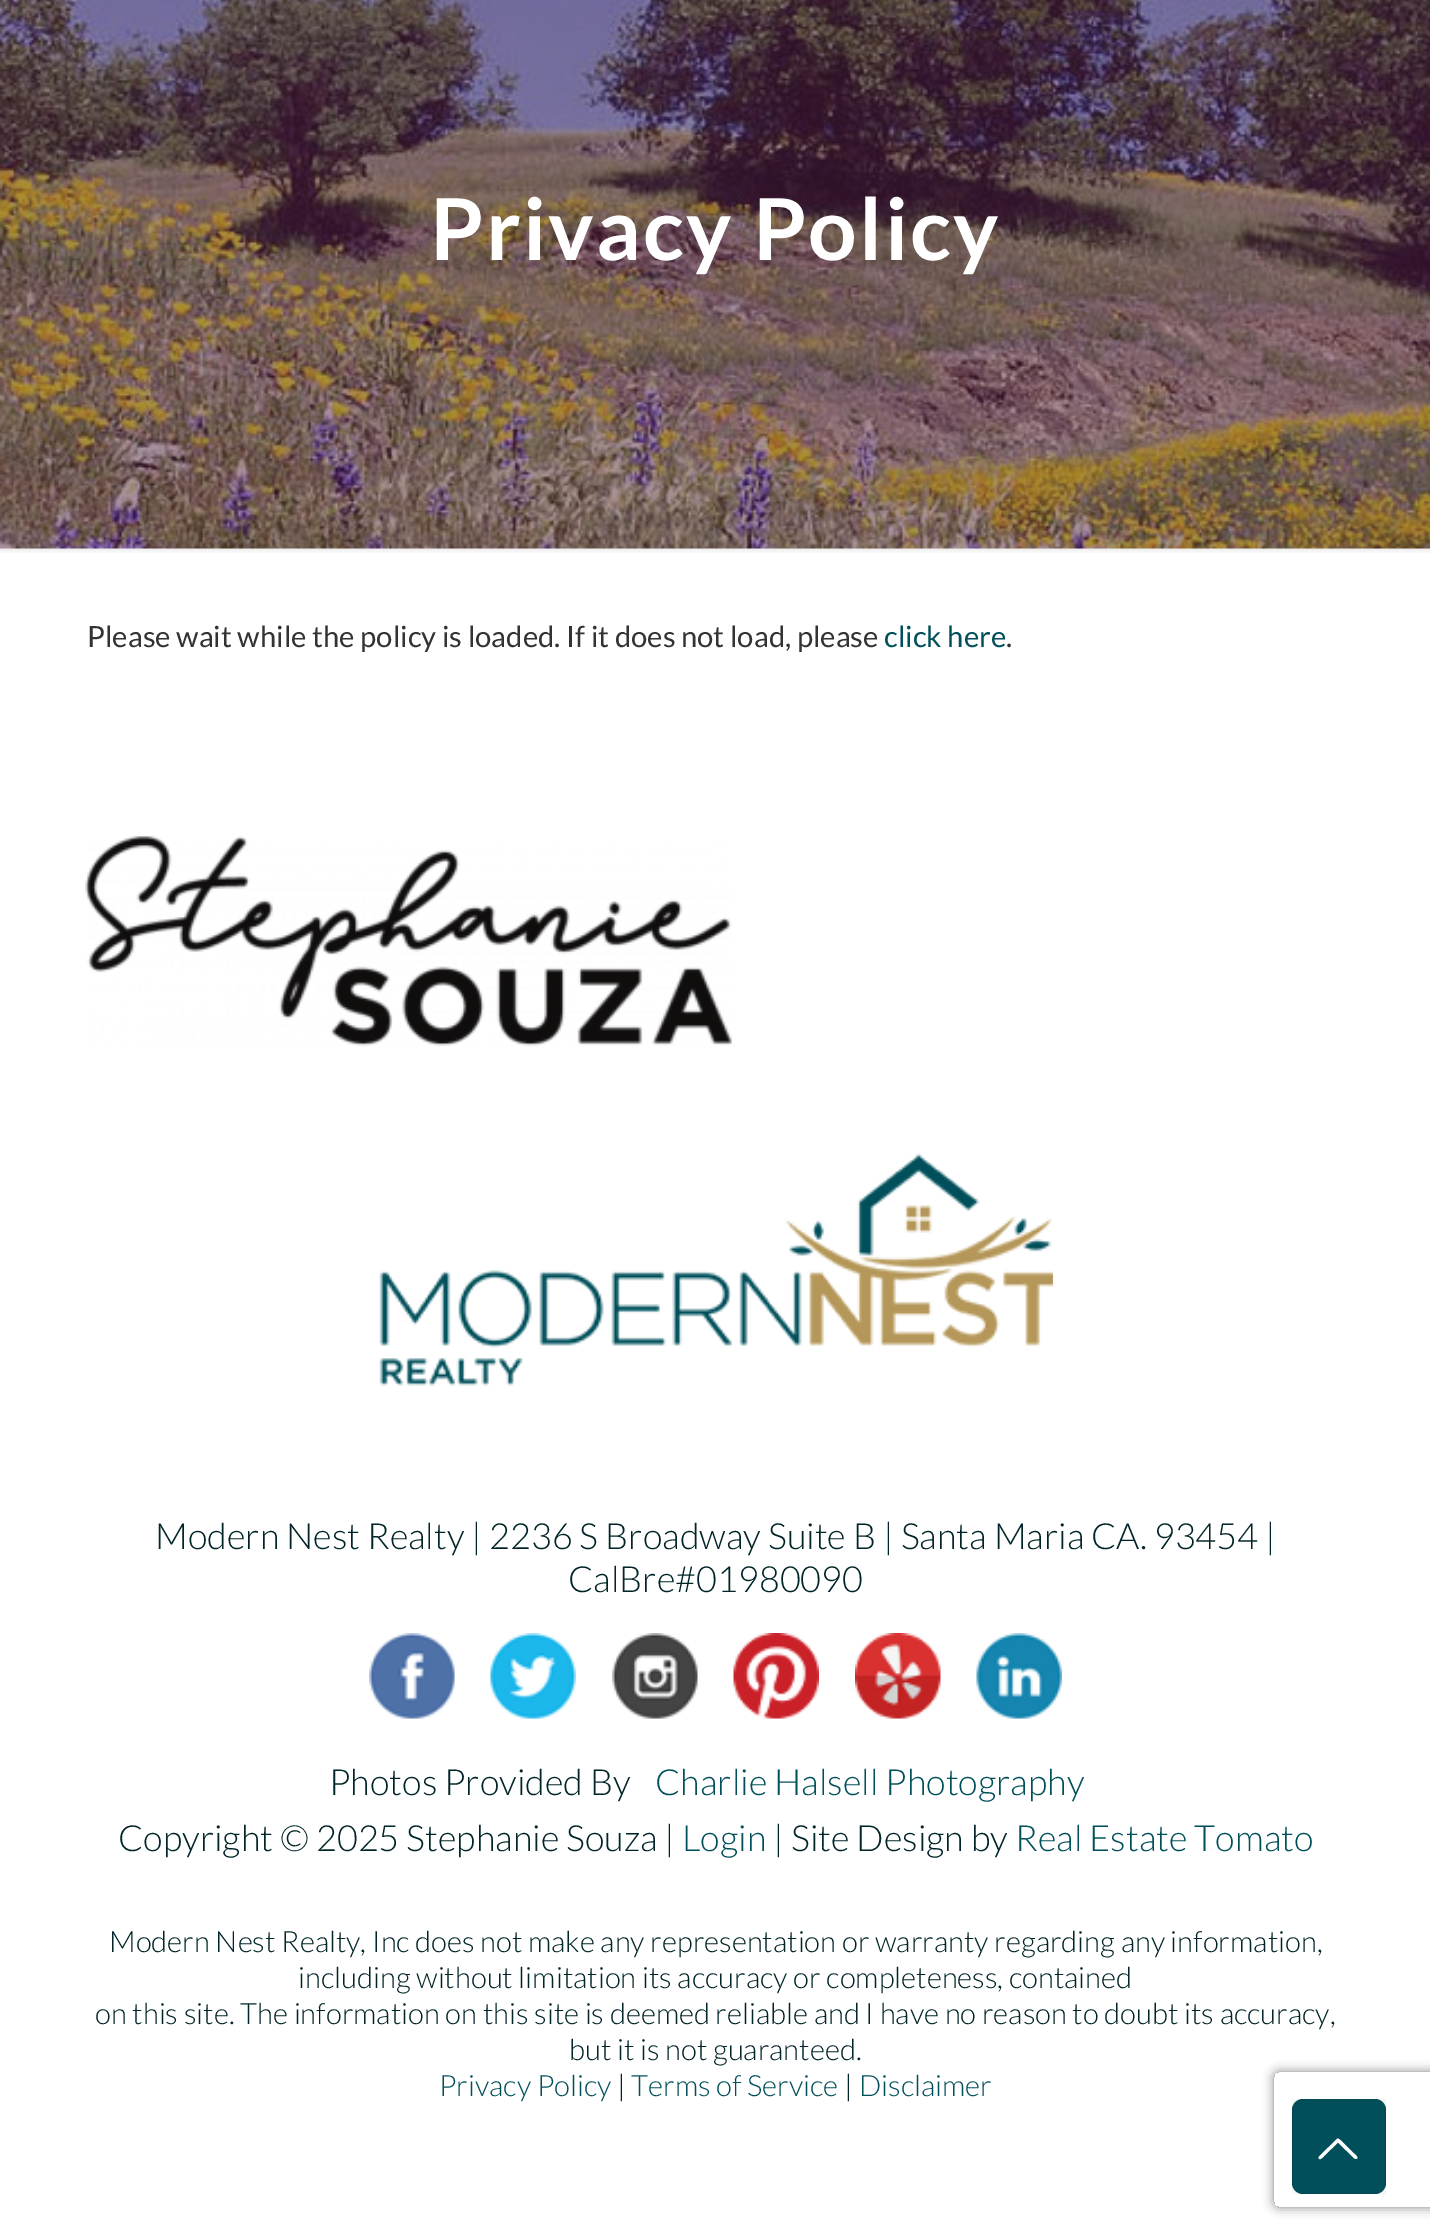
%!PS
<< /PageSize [1430 2238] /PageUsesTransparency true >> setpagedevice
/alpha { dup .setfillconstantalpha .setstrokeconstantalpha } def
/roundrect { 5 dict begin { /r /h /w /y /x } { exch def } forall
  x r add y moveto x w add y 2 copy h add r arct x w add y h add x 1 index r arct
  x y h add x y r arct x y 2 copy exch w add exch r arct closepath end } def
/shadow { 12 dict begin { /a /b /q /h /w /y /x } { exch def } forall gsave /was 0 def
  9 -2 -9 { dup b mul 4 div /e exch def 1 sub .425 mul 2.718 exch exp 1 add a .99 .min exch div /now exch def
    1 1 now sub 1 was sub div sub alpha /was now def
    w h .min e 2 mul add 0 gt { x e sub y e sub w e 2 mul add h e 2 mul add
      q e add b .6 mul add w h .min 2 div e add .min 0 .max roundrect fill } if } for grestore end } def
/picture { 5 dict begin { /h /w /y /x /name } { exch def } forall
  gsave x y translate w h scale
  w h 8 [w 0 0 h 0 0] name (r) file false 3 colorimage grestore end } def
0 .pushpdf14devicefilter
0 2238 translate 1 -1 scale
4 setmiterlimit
1 setgray
0 0 1430 2238 rectfill
0.969 setgray
0 548 1430 1 rectfill
(img1.rgb) 0 0 1430 549 picture
/Lato-Bold [85.5 0 0 -85.5 0 0] selectfont
1 setgray
430 260 moveto 2.25 0 (Privacy Policy) ashow
(img2.rgb) 0 548 1430 5 picture
/Lato-Regular [29.25 0 0 -29.25 0 0] selectfont
0.2 setgray
87 647 moveto (Please wait while the policy is loaded. If it does not load, please) show
0 0.31 0.353 setrgbcolor
884 647 moveto (click here) show
0.2 setgray
1006 647 moveto (.) show
(img3.rgb) 85 836 647 211 picture
(img4.rgb) 379 1153 674 233 picture
/Lato-Light [36 0 0 -36 0 0] selectfont
0 0.141 0.157 setrgbcolor
155 1549 moveto (Modern Nest Realty | 2236 S Broadway Suite B | Santa Maria CA. 93454 |) show
568 1592 moveto (CalBre#01980090) show
(img5.rgb) 369 1633 86 86 picture
(img6.rgb) 490 1633 86 86 picture
(img7.rgb) 612 1633 86 86 picture
(img8.rgb) 733 1633 86 86 picture
(img9.rgb) 855 1633 86 86 picture
(img10.rgb) 976 1633 86 86 picture
329 1795 moveto (Photos Provided By) show
0 0.31 0.353 setrgbcolor
655 1795 moveto (Charlie Halsell Photography) show
0 0.141 0.157 setrgbcolor
118 1851 moveto (Copyright © 2025 Stephanie Souza |) show
0 0.31 0.353 setrgbcolor
682 1851 moveto (Login) show
0 0.141 0.157 setrgbcolor
773 1851 moveto (| Site Design by) show
0 0.31 0.353 setrgbcolor
1015 1851 moveto (Real Estate Tomato) show
/Lato-Light [29.25 0 0 -29.25 0 0] selectfont
0 0.141 0.157 setrgbcolor
109 1952 moveto (Modern Nest Realty, Inc does not make any representation or warranty regarding any information,) show
298 1988 moveto (including without limitation its accuracy or completeness, contained) show
95 2024 moveto (on this site. The information on this site is deemed reliable and I have no reason to doubt its accuracy,) show
569 2060 moveto (but it is not guaranteed.) show
0 0.31 0.353 setrgbcolor
439 2096 moveto (Privacy Policy) show
0 0.141 0.157 setrgbcolor
617 2096 moveto (|) show
0 0.31 0.353 setrgbcolor
631 2096 moveto (Terms of Service) show
0 0.141 0.157 setrgbcolor
844 2096 moveto (|) show
0 0.31 0.353 setrgbcolor
859 2096 moveto (Disclaimer) show
gsave
newpath 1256 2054 moveto 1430 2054 lineto 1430 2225 lineto 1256 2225 lineto closepath 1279 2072 moveto 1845 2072 lineto 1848 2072 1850 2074 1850 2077 curveto 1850 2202 lineto 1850 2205 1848 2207 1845 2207 curveto 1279 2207 lineto 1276 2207 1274 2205 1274 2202 curveto 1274 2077 lineto 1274 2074 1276 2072 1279 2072 curveto closepath eoclip newpath
0.502 setgray
1274 2072 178 135 5 5.5 1 shadow
grestore
1292 2099 94 95 11 roundrect fill
0.03 alpha
0 setgray
2 setlinewidth
1293 2100 92 93 rectstroke
1 alpha
1 setgray
newpath 1354.5 2158.5 moveto 1338 2142.5 lineto 1324 2156 lineto 1323 2157 1320 2161 1318.5 2158 curveto 1319 2156.5 lineto 1337.5 2138.5 lineto 1339 2138 1344 2144 1345 2144.5 curveto 1354 2153.5 lineto 1354 2153.5 1360 2158 1356 2159 curveto closepath fill
.poppdf14devicefilter showpage
